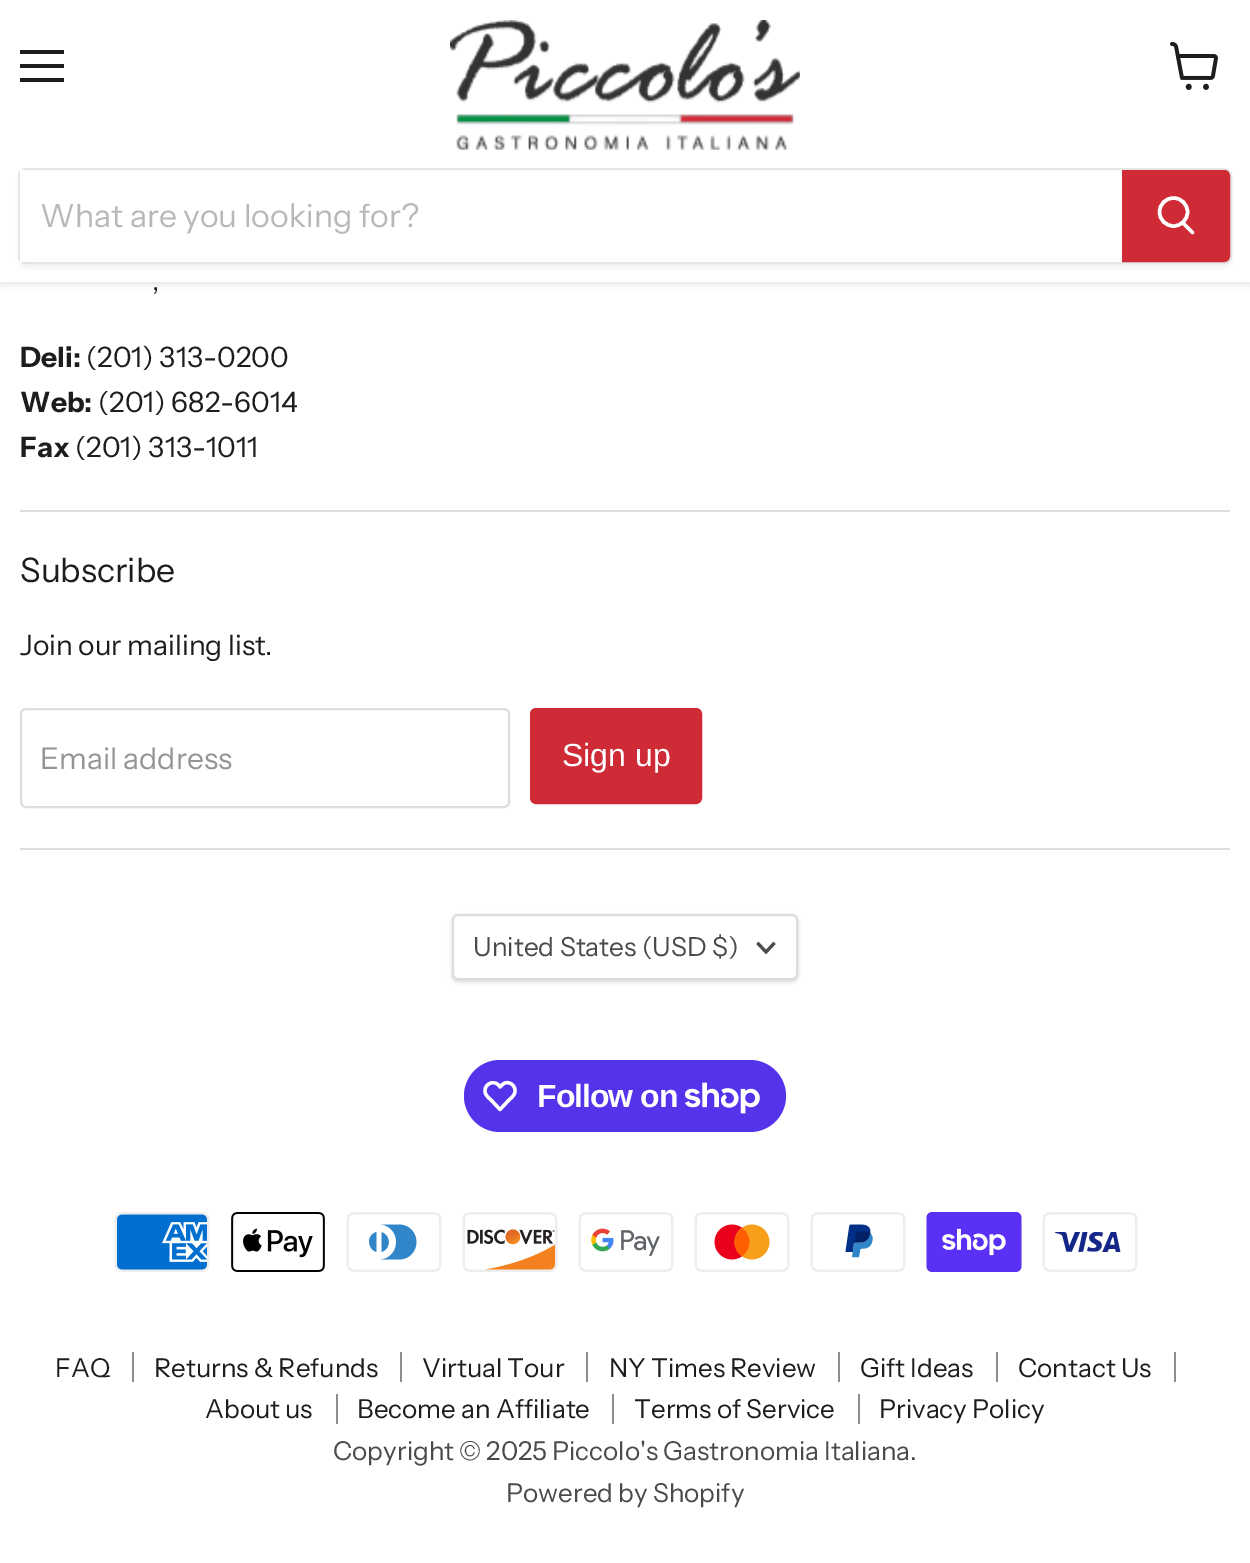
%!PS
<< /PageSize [1250 1563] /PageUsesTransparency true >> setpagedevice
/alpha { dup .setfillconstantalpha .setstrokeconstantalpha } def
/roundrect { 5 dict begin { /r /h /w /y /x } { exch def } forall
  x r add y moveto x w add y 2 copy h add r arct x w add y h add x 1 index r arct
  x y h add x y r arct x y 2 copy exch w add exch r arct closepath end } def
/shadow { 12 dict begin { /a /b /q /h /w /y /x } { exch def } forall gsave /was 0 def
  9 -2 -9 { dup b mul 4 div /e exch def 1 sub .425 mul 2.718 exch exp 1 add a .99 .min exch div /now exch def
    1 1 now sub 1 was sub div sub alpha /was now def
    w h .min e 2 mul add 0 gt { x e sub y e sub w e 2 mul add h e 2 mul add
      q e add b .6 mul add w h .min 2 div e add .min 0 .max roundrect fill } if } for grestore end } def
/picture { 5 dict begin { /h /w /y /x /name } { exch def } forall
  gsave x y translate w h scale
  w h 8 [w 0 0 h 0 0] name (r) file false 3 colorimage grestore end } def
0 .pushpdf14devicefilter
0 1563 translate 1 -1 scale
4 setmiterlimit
1 setgray
0 0 1250 1563 rectfill
0.502 setgray
0 2 1250 282 0 4 0.25 shadow
1 setgray
0 0 1250 282 rectfill
0.114 setgray
20 50 44 4 rectfill
20 64 44 4 rectfill
20 78 44 4 rectfill
(img1.rgb) 1170 42 48 48 picture
(img2.rgb) 450 20 350 130 picture
gsave
newpath 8 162 moveto 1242 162 lineto 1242 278 lineto 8 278 lineto closepath 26 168 moveto 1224 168 lineto 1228.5 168 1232 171.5 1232 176 curveto 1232 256 lineto 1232 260.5 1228.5 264 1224 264 curveto 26 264 lineto 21.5 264 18 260.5 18 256 curveto 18 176 lineto 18 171.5 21.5 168 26 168 curveto closepath eoclip newpath
0.502 setgray
18 172 1214 96 8 3 0.11 shadow
grestore
0.2 alpha
0.502 setgray
2 setlinewidth
19 169 1212 94 7 roundrect stroke
1 alpha
1 setgray
20 170 5 92 rectfill
/InstrumentSans-Regular [32 0 0 -32 0 0] selectfont
0.722 setgray
40 227 moveto (What are you looking for?) show
0.808 0.169 0.216 setrgbcolor
newpath 1123 171 moveto 1224 171 lineto 1227 171 1229 173 1229 176 curveto 1229 256 lineto 1229 259 1227 261 1224 261 curveto 1123 261 lineto closepath gsave fill grestore
stroke
1 setgray
3.5 setlinewidth
1 setlinecap
newpath 1192.5 232.5 moveto 1183 223 lineto stroke
0 setlinecap
newpath 1173.5 212 14 0 360 arc closepath stroke
0.867 setgray
20 510 1210 2 rectfill
/InstrumentSans-Regular [28.1 0 0 -28.1 0 0] selectfont
0.114 setgray
152 290 moveto (,) show
/InstrumentSans-Bold [28.1 0 0 -28.1 0 0] selectfont
20 367 moveto (Deli:) show
/InstrumentSans-Regular [28.1 0 0 -28.1 0 0] selectfont
86 367 moveto (\(201\) 313-0200) show
/InstrumentSans-Bold [28.1 0 0 -28.1 0 0] selectfont
20 412 moveto (Web:) show
/InstrumentSans-Regular [28.1 0 0 -28.1 0 0] selectfont
98 412 moveto (\(201\) 682-6014) show
/InstrumentSans-Bold [28.1 0 0 -28.1 0 0] selectfont
20 457 moveto (Fax) show
/InstrumentSans-Regular [28.1 0 0 -28.1 0 0] selectfont
75 457 moveto (\(201\) 313-1011) show
0.867 setgray
20 848 1210 2 rectfill
/InstrumentSans-Regular [33.75 0 0 -33.75 0 0] selectfont
0.114 setgray
20 582 moveto (Subscribe) show
/InstrumentSans-Regular [28.1 0 0 -28.1 0 0] selectfont
20 655 moveto (Join our mailing list.) show
0.867 setgray
2 setlinewidth
21 709 488 98 5 roundrect stroke
/InstrumentSans-Regular [30 0 0 -30 0 0] selectfont
0.58 setgray
40 769 moveto (Email address) show
0.808 0.169 0.216 setrgbcolor
531 709 170 94 5 roundrect gsave fill grestore
stroke
/LiberationSans-Regular [32 0 0 -32 0 0] selectfont
1 setgray
562 766 moveto (Sign up) show
0 setgray
452 916 346 66 6 2 0.15 shadow
1 setgray
453 915 344 64 5 roundrect gsave fill grestore
0.867 setgray
stroke
/InstrumentSans-Regular [26.25 0 0 -26.25 0 0] selectfont
0.29 setgray
473 956 moveto (United States \(USD $\)) show
0.302 setgray
3.1 setlinewidth
2 setlinecap
newpath 766 952 moveto 773.5 944 lineto 766 952 moveto 758.5 944 lineto stroke
0.329 0.2 0.922 setrgbcolor
464 1060 322 72 36 roundrect fill
1 setgray
3.3 setlinewidth
0 setlinecap
1 setlinejoin
newpath 498.5 1085 moveto 500 1087 lineto 501.5 1085.5 503 1083.5 505 1083 curveto 511 1081 517 1087.5 514.5 1093.5 curveto 513.5 1096.5 510.5 1098.5 508.5 1100.5 curveto 500 1109.5 lineto 491.5 1100.5 lineto 489.5 1098.5 486.5 1096.5 485.5 1093.5 curveto 482.5 1085.5 492.5 1079 498.5 1085 curveto closepath stroke
/LiberationSans-Bold [32 0 0 -32 0 0] selectfont
537 1107 moveto -1 0 (Follow on) ashow
(img3.rgb) 685 1082 75 32 picture
(img4.rgb) 114 1212 96 60 picture
(img5.rgb) 231 1212 94 60 picture
(img6.rgb) 346 1212 96 60 picture
(img7.rgb) 462 1212 96 60 picture
(img8.rgb) 578 1212 96 60 picture
(img9.rgb) 694 1212 96 60 picture
(img10.rgb) 810 1212 96 60 picture
(img11.rgb) 926 1212 96 60 picture
(img12.rgb) 1042 1212 96 60 picture
0.557 setgray
132 1352 2 30 rectfill
/InstrumentSans-Regular [26 0 0 -26 0 0] selectfont
0.114 setgray
55 1377 moveto (FAQ) show
0.557 setgray
400 1352 2 30 rectfill
0.114 setgray
154 1377 moveto (Returns & Refunds) show
0.557 setgray
586 1352 2 30 rectfill
0.114 setgray
422 1377 moveto (Virtual Tour) show
0.557 setgray
838 1352 2 30 rectfill
0.114 setgray
609 1377 moveto (NY Times Review) show
0.557 setgray
996 1352 2 30 rectfill
0.114 setgray
860 1377 moveto (Gift Ideas) show
0.557 setgray
1174 1352 2 30 rectfill
0.114 setgray
1018 1377 moveto (Contact Us) show
0.557 setgray
336 1394 2 30 rectfill
0.114 setgray
205 1418 moveto (About us) show
0.557 setgray
612 1394 2 30 rectfill
0.114 setgray
357 1418 moveto (Become an Affiliate) show
0.557 setgray
858 1394 2 30 rectfill
0.114 setgray
634 1418 moveto (Terms of Service) show
879 1418 moveto (Privacy Policy) show
0.29 setgray
333 1460 moveto (Copyright © 2025 Piccolo's Gastronomia Italiana.) show
506 1502 moveto (Powered by Shopify) show
.poppdf14devicefilter showpage
